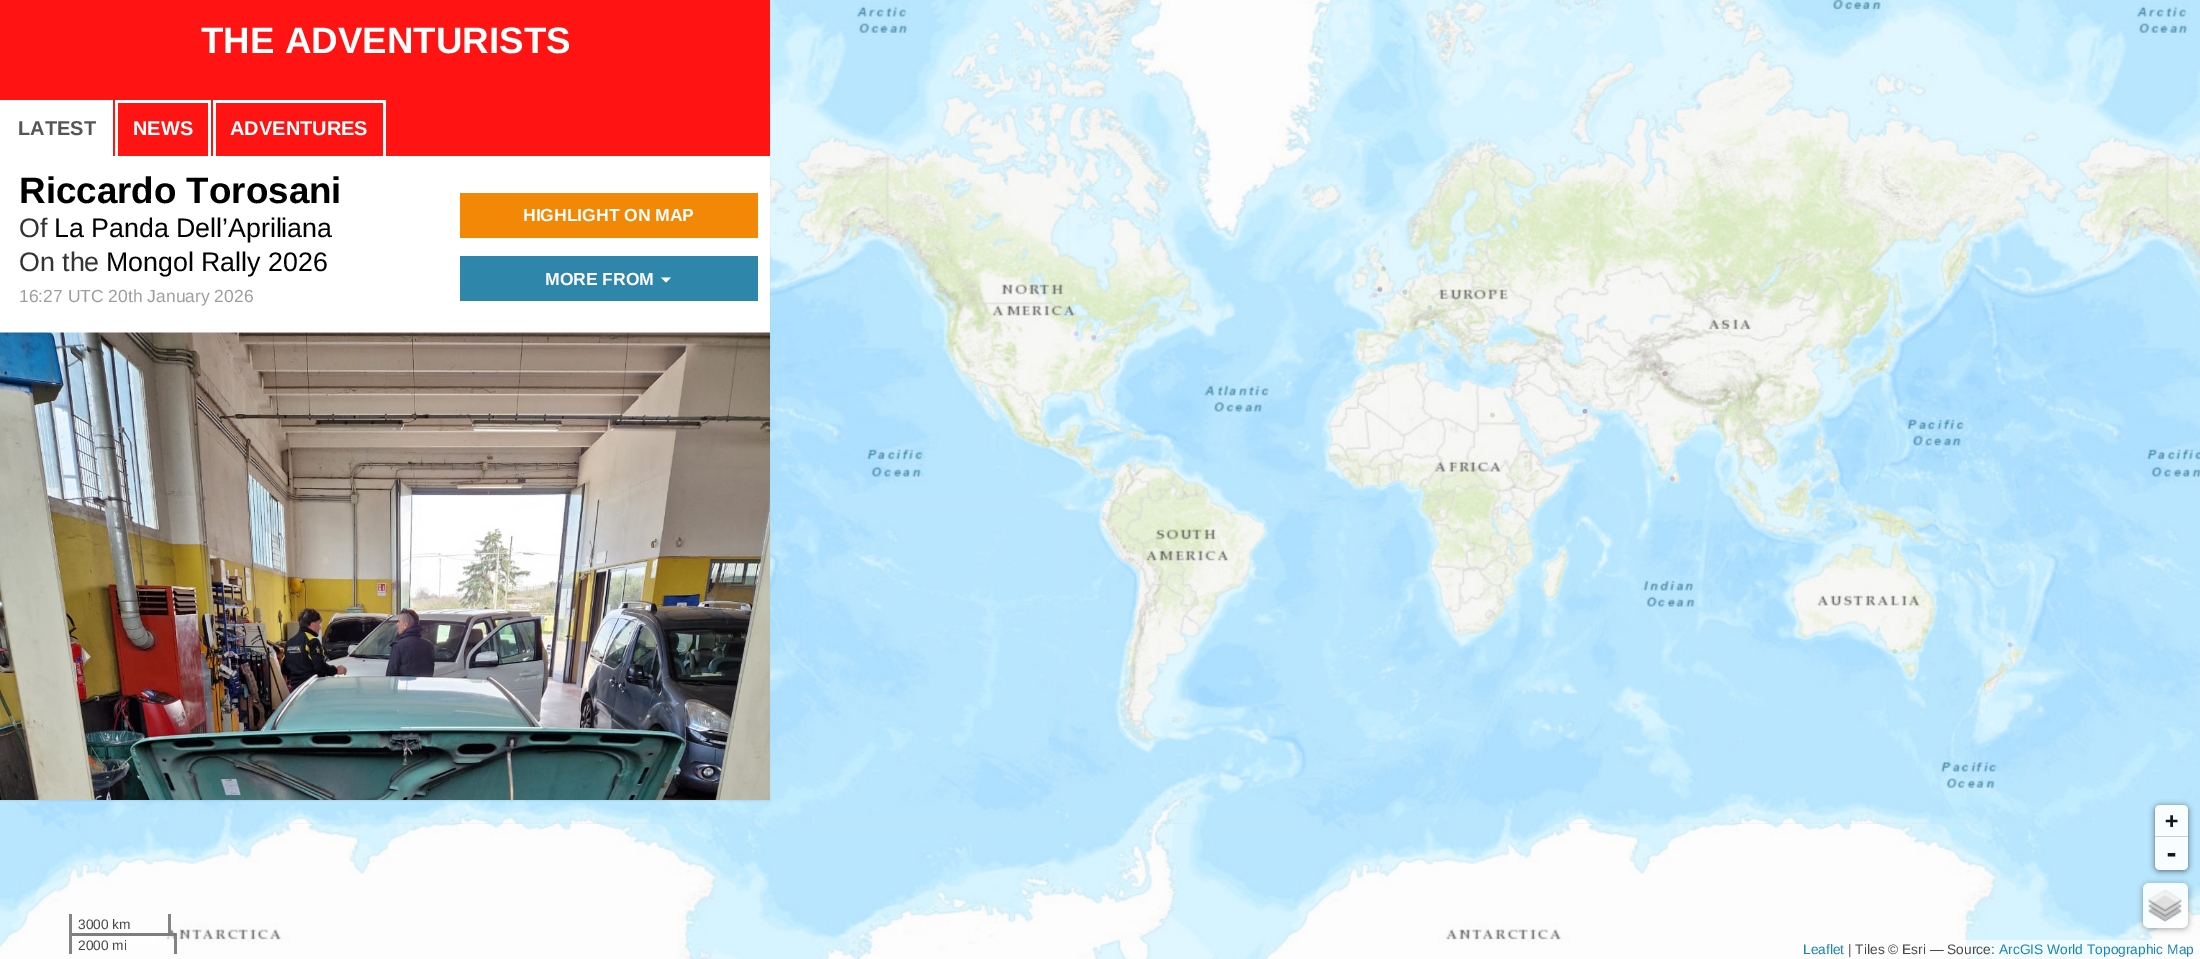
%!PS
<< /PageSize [2200 959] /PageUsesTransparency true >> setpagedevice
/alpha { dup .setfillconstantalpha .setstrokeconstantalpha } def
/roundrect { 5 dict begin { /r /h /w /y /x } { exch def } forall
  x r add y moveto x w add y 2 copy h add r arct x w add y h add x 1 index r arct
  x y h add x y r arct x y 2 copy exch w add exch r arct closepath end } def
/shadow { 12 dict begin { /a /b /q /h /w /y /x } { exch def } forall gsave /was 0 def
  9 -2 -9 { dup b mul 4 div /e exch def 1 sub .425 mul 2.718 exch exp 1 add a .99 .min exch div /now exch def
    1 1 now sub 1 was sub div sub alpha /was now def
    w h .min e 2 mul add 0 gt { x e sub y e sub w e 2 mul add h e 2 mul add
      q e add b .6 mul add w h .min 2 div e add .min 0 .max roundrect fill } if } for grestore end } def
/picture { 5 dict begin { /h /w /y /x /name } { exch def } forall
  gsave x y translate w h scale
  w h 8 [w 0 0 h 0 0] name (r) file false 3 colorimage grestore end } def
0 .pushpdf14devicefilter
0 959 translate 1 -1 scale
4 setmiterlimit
0.867 setgray
0 0 2200 959 rectfill
(img2.rgb) 770 0 299 184 picture
(img7.rgb) 770 184 299 320 picture
(img12.rgb) 0 800 109 24 picture
(img8.rgb) 1068 184 321 320 picture
(img15.rgb) 748 503 321 321 picture
(img14.rgb) 428 800 321 24 picture
(img13.rgb) 109 800 320 24 picture
0 setgray
0 1 770 800 0 0.5 0.05 shadow
1 setgray
0 156 770 177 rectfill
1 0.075 0.075 setrgbcolor
0 0 770 100 rectfill
/LiberationSans-Bold [36.75 0 0 -36.75 0 0] selectfont
1 setgray
201 53 moveto (THE ADVENTURISTS) show
1 0.075 0.075 setrgbcolor
113 100 657 56 rectfill
1 setgray
0 100 113 56 rectfill
/LiberationSans-Bold [20 0 0 -20 0 0] selectfont
0.333 setgray
18 135 moveto (LATEST) show
0.996 setgray
115 100 95 3 rectfill
208 100 3 56 rectfill
115 100 3 56 rectfill
1 setgray
133 135 moveto (NEWS) show
0.996 setgray
213 100 172 3 rectfill
383 100 3 56 rectfill
213 100 3 56 rectfill
1 setgray
230 135 moveto (ADVENTURES) show
/LiberationSans-Bold [36.75 0 0 -36.75 0 0] selectfont
0 setgray
19 203 moveto (Riccardo Torosani) show
/LiberationSans-Regular [26.75 0 0 -26.75 0 0] selectfont
0.2 setgray
19 237 moveto (Of) show
0 setgray
54 237 moveto (La Panda Dell’Apriliana) show
0.2 setgray
19 271 moveto (On the) show
0 setgray
106 271 moveto (Mongol Rally 2026) show
/LiberationSans-Regular [17.5 0 0 -17.5 0 0] selectfont
0.62 setgray
19 302 moveto (16:27 UTC 20th January 2026) show
0.949 0.533 0.02 setrgbcolor
460 193 298 45 rectfill
/LiberationSans-Bold [17.5 0 0 -17.5 0 0] selectfont
1 setgray
523 221 moveto (HIGHLIGHT ON MAP) show
0.184 0.525 0.671 setrgbcolor
460 256 298 45 rectfill
1 setgray
545 285 moveto (MORE FROM) show
newpath 661 277.5 moveto 671 277.5 lineto 666 282.5 lineto closepath fill
(img1.rgb) 0 332 770 468 picture
(img3.rgb) 1069 0 320 184 picture
(img16.rgb) 1068 503 321 321 picture
(img9.rgb) 1388 183 321 321 picture
(img4.rgb) 1389 0 320 184 picture
(img17.rgb) 1388 503 321 321 picture
(img10.rgb) 1708 183 321 321 picture
(img5.rgb) 1709 0 320 184 picture
(img6.rgb) 2029 0 171 184 picture
(img11.rgb) 2029 184 171 320 picture
(img18.rgb) 1708 503 321 321 picture
(img19.rgb) 2029 504 171 320 picture
(img20.rgb) 0 824 109 135 picture
(img21.rgb) 109 824 320 135 picture
(img22.rgb) 429 824 320 135 picture
(img23.rgb) 749 824 320 135 picture
(img24.rgb) 1069 824 320 135 picture
(img21.rgb) 1389 824 320 135 picture
(img22.rgb) 1709 824 320 135 picture
(img25.rgb) 2029 824 171 135 picture
(img26.rgb) 1012 252 1001 402 picture
0.45 alpha
167 930 3 5 rectfill
0.9 alpha
0.467 setgray
168 914 3 21 rectfill
69 933 101 3 rectfill
1 alpha
0.518 setgray
69 914 3 21 rectfill
/LiberationSans-Regular [13.75 0 0 -13.75 0 0] selectfont
0.278 setgray
78 929 moveto (3000 km) show
0.45 alpha
1 setgray
72 933 104 11 rectfill
0.9 alpha
0.467 setgray
69 933 107 3 rectfill
174 933 3 21 rectfill
1 alpha
0.518 setgray
69 933 3 21 rectfill
0.278 setgray
78 950 moveto (2000 mi) show
gsave
newpath 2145 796 moveto 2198 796 lineto 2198 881 lineto 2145 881 lineto closepath 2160 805 moveto 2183 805 lineto 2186 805 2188 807 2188 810 curveto 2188 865 lineto 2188 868 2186 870 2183 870 curveto 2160 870 lineto 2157 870 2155 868 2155 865 curveto 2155 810 lineto 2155 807 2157 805 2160 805 curveto closepath eoclip newpath
0 setgray
2155 806 33 65 5 3 0.59 shadow
grestore
0.9 alpha
1 setgray
newpath 2160 805 moveto 2183 805 lineto 2186 805 2188 807 2188 810 curveto 2188 838 lineto 2155 838 lineto 2155 810 lineto 2155 807 2157 805 2160 805 curveto closepath fill
1 alpha
0.792 0.812 0.82 setrgbcolor
2155 836 33 1 rectfill
/DejaVuSansMono-Bold [22 0 0 -22 0 0] selectfont
0.071 0.09 0.098 setrgbcolor
2165 828 moveto (+) show
0.973 0.992 1 setrgbcolor
newpath 2155 838 moveto 2188 838 lineto 2188 865 lineto 2188 868 2186 870 2183 870 curveto 2160 870 lineto 2157 870 2155 868 2155 865 curveto closepath fill
/DejaVuSansMono-Bold [25 0 0 -25 0 0] selectfont
0.071 0.09 0.098 setrgbcolor
2164 862 moveto (-) show
gsave
newpath 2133 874 moveto 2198 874 lineto 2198 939 lineto 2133 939 lineto closepath 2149 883 moveto 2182 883 lineto 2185.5 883 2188 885.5 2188 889 curveto 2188 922 lineto 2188 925.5 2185.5 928 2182 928 curveto 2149 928 lineto 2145.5 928 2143 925.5 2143 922 curveto 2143 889 lineto 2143 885.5 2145.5 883 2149 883 curveto closepath eoclip newpath
0 setgray
2143 884 45 45 6 3 0.36 shadow
grestore
0.9 alpha
1 setgray
2143 883 45 45 6 roundrect fill
1 alpha
(img27.rgb) 2148 890 34 32 picture
0.63 alpha
1958 940 201 19 rectfill
/LiberationSans-Regular [13.75 0 0 -13.75 0 0] selectfont
1 alpha
0.098 0.522 0.694 setrgbcolor
1803 954 moveto (Leaflet) show
0.278 setgray
1848 954 moveto (| Tiles © Esri — Source:) show
0.098 0.522 0.694 setrgbcolor
1999 954 moveto (ArcGIS World Topographic Map) show
.poppdf14devicefilter showpage
